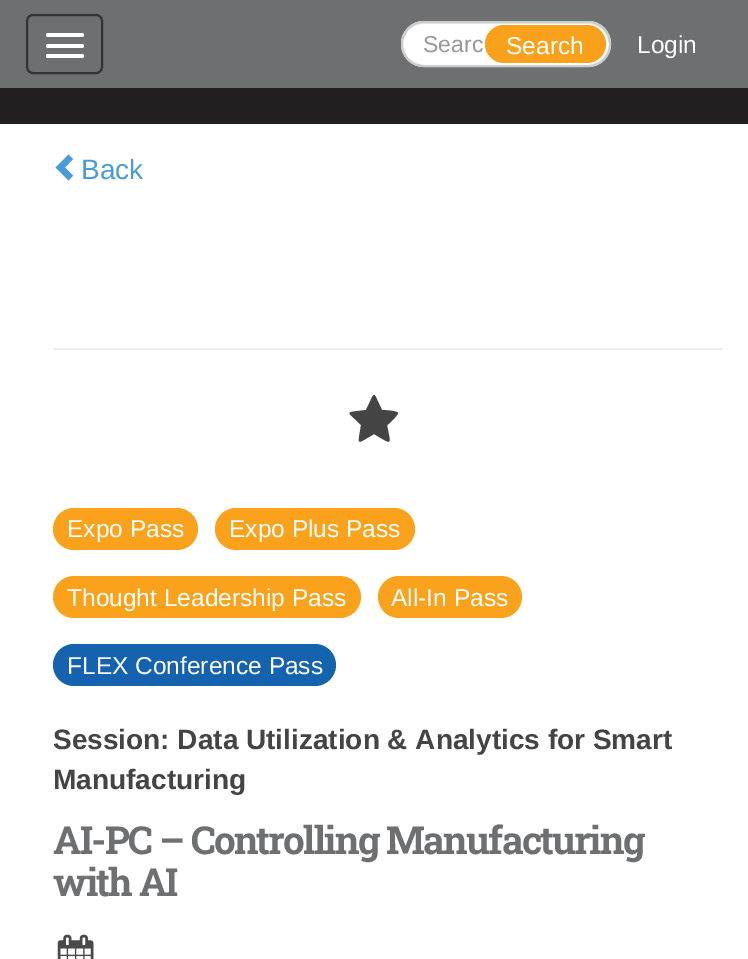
%!PS
<< /PageSize [748 959] >> setpagedevice
/roundrect { 5 dict begin { /r /h /w /y /x } { exch def } forall
  x r add y moveto x w add y 2 copy h add r arct x w add y h add x 1 index r arct
  x y h add x y r arct x y 2 copy exch w add exch r arct closepath end } def
/picture { 5 dict begin { /h /w /y /x /name } { exch def } forall
  gsave x y translate w h scale
  w h 8 [w 0 0 h 0 0] name (r) file false 3 colorimage grestore end } def
0 959 translate 1 -1 scale
4 setmiterlimit
1 setgray
0 0 748 959 rectfill
0.427 0.435 0.443 setrgbcolor
0 0 748 88 rectfill
0.2 setgray
2 setlinewidth
27 15 75 58 6 roundrect stroke
1 setgray
46 33 38 4 2 roundrect fill
46 44 38 4 2 roundrect fill
46 54 38 4 2 roundrect fill
401 21 210 46 23 roundrect fill
0.925 setgray
newpath 424 24 moveto 588 24 lineto 600 24 608 33 609 45 curveto 609 44 lineto 609 32 600 23 588 23 curveto 424 23 lineto 416 23 408 28 405 35 curveto 409 28 416 24 424 24 curveto closepath fill
0.8 setgray
402 22 208 44 22 roundrect stroke
/LiberationSans-Regular [23 0 0 -23 0 0] selectfont
0.6 setgray
423 52 moveto (Searc) show
0.98 0.631 0.106 setrgbcolor
485 25 121 38 19 roundrect fill
/LiberationSans-Regular [24.5 0 0 -24.5 0 0] selectfont
1 setgray
506 54 moveto (Search) show
637 53 moveto (Login) show
0.137 0.122 0.125 setrgbcolor
0 88 748 36 rectfill
0.282 0.612 0.847 setrgbcolor
newpath 73 159 moveto 65 167.5 lineto 73 175.5 lineto 68.5 180.5 lineto 55.5 167.5 lineto 68.5 154.5 lineto closepath fill
/LiberationSans-Regular [28 0 0 -28 0 0] selectfont
81 179 moveto (Back) show
0.933 setgray
53 348 670 2 rectfill
0.267 setgray
newpath 398 413 moveto 398 415 389 424 387 425 curveto 391 446 393 445 374 434 curveto 355 445 358 446 361 425 curveto 346 410 344 413 366 410 curveto 376 390 372 390 382 410 curveto 385 410 398 411 398 413 curveto closepath fill
0.98 0.635 0.11 setrgbcolor
53 508 145 42 21 roundrect fill
/LiberationSans-Regular [24.5 0 0 -24.5 0 0] selectfont
1 setgray
67 537 moveto (Expo Pass) show
0.98 0.635 0.11 setrgbcolor
215 508 200 42 21 roundrect fill
1 setgray
229 537 moveto (Expo Plus Pass) show
0.98 0.635 0.11 setrgbcolor
53 576 308 42 21 roundrect fill
1 setgray
67 606 moveto (Thought Leadership Pass) show
0.98 0.635 0.11 setrgbcolor
378 576 144 42 21 roundrect fill
1 setgray
391 606 moveto (All-In Pass) show
0.082 0.388 0.682 setrgbcolor
53 644 283 42 21 roundrect fill
1 setgray
67 674 moveto (FLEX Conference Pass) show
/LiberationSans-Bold [28 0 0 -28 0 0] selectfont
0.267 setgray
53 749 moveto (Session: Data Utilization & Analytics for Smart) show
53 789 moveto (Manufacturing) show
/RobotoSlab-Bold [38.5 0 0 -38.5 0 0] selectfont
0.427 0.435 0.443 setrgbcolor
53 854 moveto -1.75 0 (AI-PC – Controlling Manufacturing) ashow
53 896 moveto -1.75 0 (with AI) ashow
(img1.rgb) 57 934 37 25 picture
showpage
